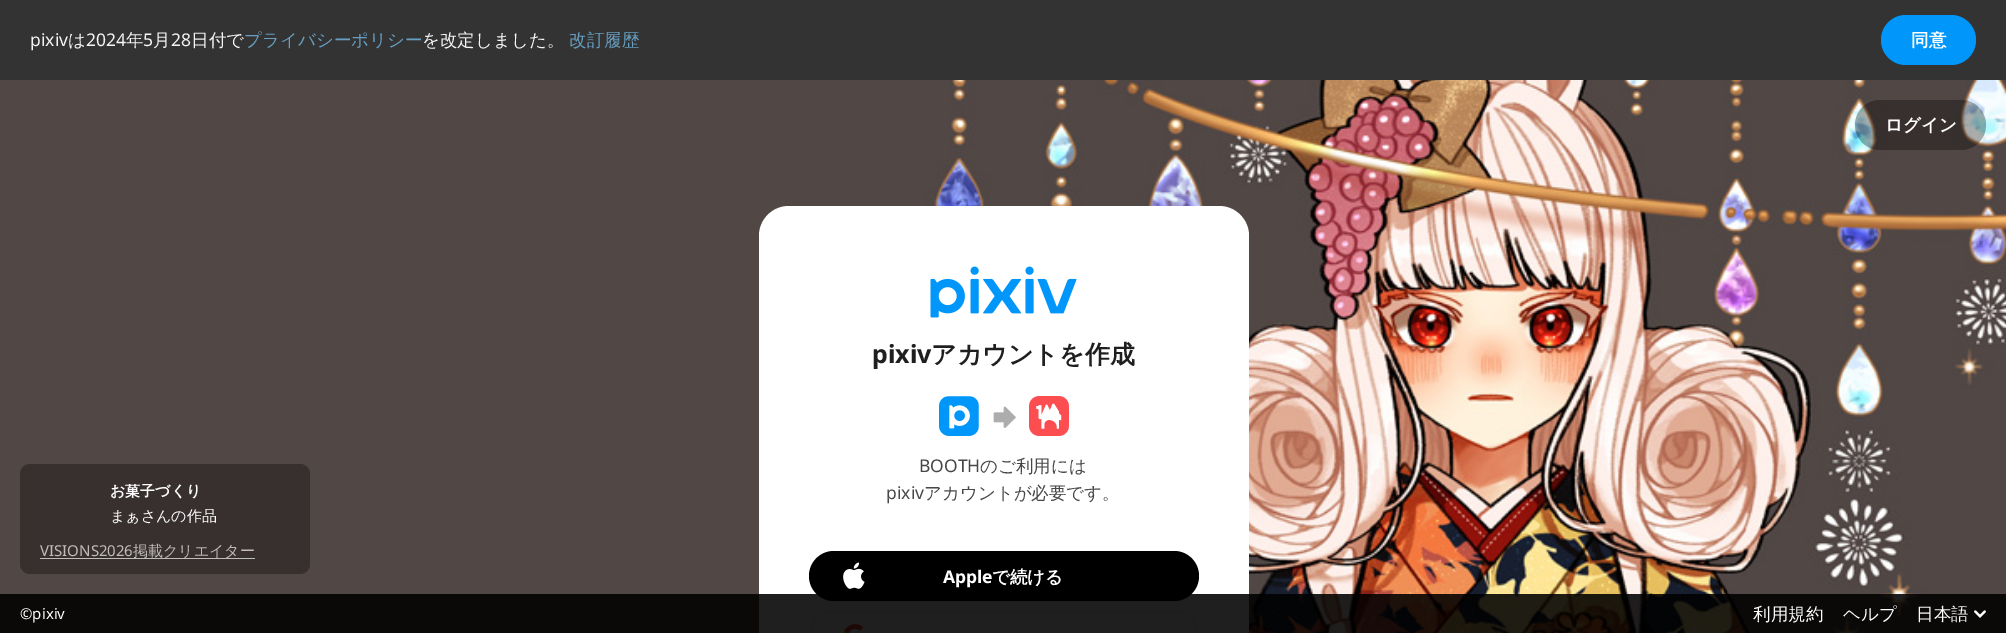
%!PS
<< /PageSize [2006 633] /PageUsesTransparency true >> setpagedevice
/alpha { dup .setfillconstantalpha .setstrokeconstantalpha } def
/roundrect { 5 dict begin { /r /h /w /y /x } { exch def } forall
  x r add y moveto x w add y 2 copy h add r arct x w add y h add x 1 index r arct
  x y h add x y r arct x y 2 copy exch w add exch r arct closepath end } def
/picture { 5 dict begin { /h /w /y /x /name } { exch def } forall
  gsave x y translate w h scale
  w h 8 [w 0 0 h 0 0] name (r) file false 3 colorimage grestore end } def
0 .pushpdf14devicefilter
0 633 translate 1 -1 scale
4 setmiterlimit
1 setgray
0 0 2006 633 rectfill
0.2 setgray
0 0 2006 80 rectfill
/NotoSans-Regular [17.5 0 0 -17.5 0 0] selectfont
0.961 setgray
30 46 moveto (pixiv) show
/WenQuanYiZenHei-Medium [17.5 0 0 -17.5 0 0] selectfont
68 46 moveto (は) show
/NotoSans-Regular [17.5 0 0 -17.5 0 0] selectfont
86 46 moveto (2024) show
/WenQuanYiZenHei-Medium [17.5 0 0 -17.5 0 0] selectfont
126 46 moveto (年) show
/NotoSans-Regular [17.5 0 0 -17.5 0 0] selectfont
143 46 moveto (5) show
/WenQuanYiZenHei-Medium [17.5 0 0 -17.5 0 0] selectfont
153 46 moveto (月) show
/NotoSans-Regular [17.5 0 0 -17.5 0 0] selectfont
171 46 moveto (28) show
/WenQuanYiZenHei-Medium [17.5 0 0 -17.5 0 0] selectfont
191 46 moveto (日付で) show
0.4 0.624 0.761 setrgbcolor
244 46 moveto (プライバシーポリシー) show
0.961 setgray
422 46 moveto (を改定しました。) show
0.4 0.624 0.761 setrgbcolor
569 46 moveto (改訂履歴) show
0 0.588 0.98 setrgbcolor
1881 15 95 50 25 roundrect fill
/WenQuanYiZenHei-Bold [17.5 0 0 -17.5 0 0] selectfont
1 setgray
1911 46 moveto (同意) show
(img1.rgb) 0 80 2006 553 picture
0.32 alpha
0 setgray
1855 100 131 50 25 roundrect fill
1 alpha
1 setgray
1885 131 moveto (ログイン) show
0.216 0.188 0.184 setrgbcolor
20 464 290 110 10 roundrect fill
gsave
110 484 91 15 rectclip
/WenQuanYiZenHei-Bold [15 0 0 -15 0 0] selectfont
1 setgray
110 496 moveto (お菓子づくり) show
grestore
/WenQuanYiZenHei-Medium [15 0 0 -15 0 0] selectfont
1 setgray
110 521 moveto (まぁさんの作品) show
/NotoSans-Regular [15 0 0 -15 0 0] selectfont
0.749 0.741 0.737 setrgbcolor
40 556 moveto (VISIONS2026) show
40 558 215 1 rectfill
/WenQuanYiZenHei-Medium [15 0 0 -15 0 0] selectfont
133 556 moveto (掲載クリエイター) show
1 setgray
759 206 490 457 30 roundrect fill
(img2.rgb) 930 266 147 52 picture
/NotoSans-Bold [25 0 0 -25 0 0] selectfont
0.122 setgray
872 363 moveto (pixiv) show
/WenQuanYiZenHei-Bold [25 0 0 -25 0 0] selectfont
931 363 moveto (アカウントを作成) show
(img3.rgb) 939 396 40 40 picture
(img4.rgb) 993 406 23 22 picture
(img5.rgb) 1029 396 40 40 picture
/NotoSans-Regular [17.5 0 0 -17.5 0 0] selectfont
0.278 setgray
919 472 moveto (BOOTH) show
/WenQuanYiZenHei-Medium [17.5 0 0 -17.5 0 0] selectfont
980 472 moveto (のご利用には) show
/NotoSans-Regular [17.5 0 0 -17.5 0 0] selectfont
886 499 moveto (pixiv) show
/WenQuanYiZenHei-Medium [17.5 0 0 -17.5 0 0] selectfont
924 499 moveto (アカウントが必要です。) show
0 setgray
809 551 390 50 25 roundrect fill
(img6.rgb) 843 562 22 27 picture
/NotoSans-Bold [17.5 0 0 -17.5 0 0] selectfont
1 setgray
943 583 moveto (Apple) show
/WenQuanYiZenHei-Bold [17.5 0 0 -17.5 0 0] selectfont
992 583 moveto (で続ける) show
0.922 setgray
809.5 611.5 389 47 24.5 roundrect stroke
(img7.rgb) 843 624 21 9 picture
0.88 alpha
0 setgray
0 594 2006 39 rectfill
/NotoSans-Regular [15 0 0 -15 0 0] selectfont
1 alpha
1 setgray
20 619 moveto (©pixiv) show
/WenQuanYiZenHei-Medium [17.5 0 0 -17.5 0 0] selectfont
1753 620 moveto (利用規約) show
1843 620 moveto (ヘルプ) show
1916 620 moveto (日本語) show
(img8.rgb) 1974 610 12 8 picture
.poppdf14devicefilter showpage
